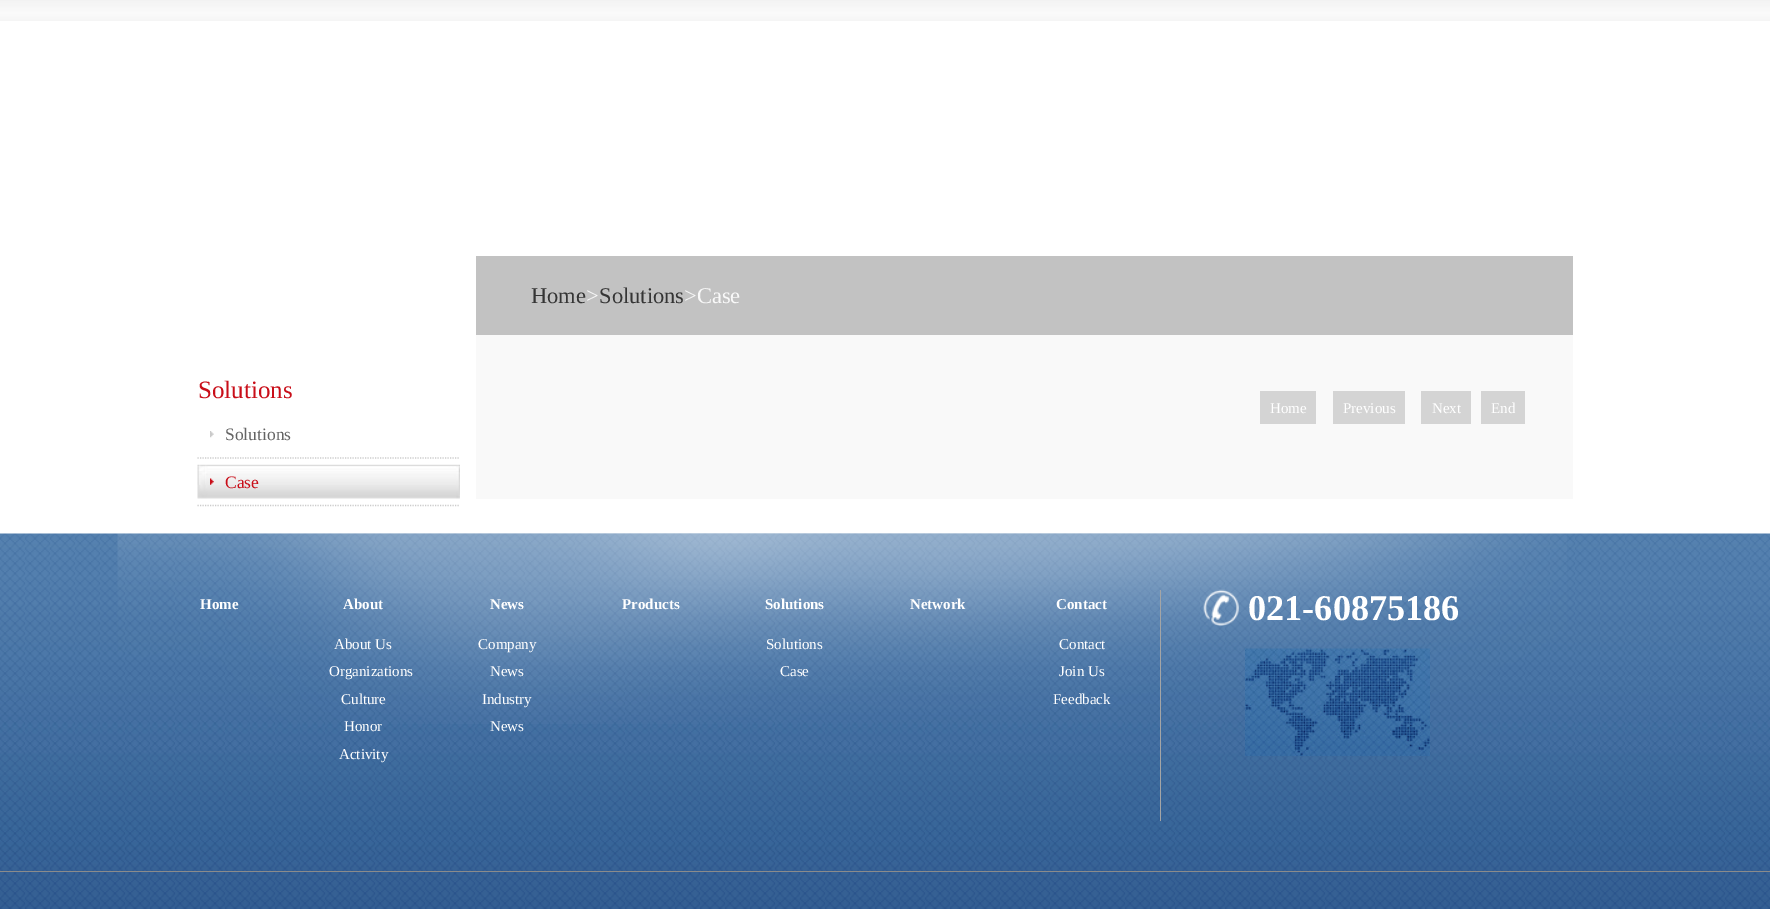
%!PS
<< /PageSize [1770 909] >> setpagedevice
/picture { 5 dict begin { /h /w /y /x /name } { exch def } forall
  gsave x y translate w h scale
  w h 8 [w 0 0 h 0 0] name (r) file false 3 colorimage grestore end } def
0 909 translate 1 -1 scale
4 setmiterlimit
1 setgray
0 0 1770 909 rectfill
(img1.rgb) 0 0 1770 21 picture
0.761 setgray
476 256 1097 79 rectfill
/LiberationSerif-Regular [22.5 0 0 -22.5 0 0] selectfont
0.208 setgray
531 303 moveto (Home) show
0.976 setgray
586 303 moveto (>) show
0.208 setgray
599 303 moveto (Solutions) show
0.976 setgray
684 303 moveto (>Case) show
476 335 1097 164 rectfill
0.831 setgray
1260 391 56 33 rectfill
/LiberationSerif-Regular [15 0 0 -15 0 0] selectfont
1 setgray
1270 413 moveto (Home) show
0.831 setgray
1333 391 72 33 rectfill
1 setgray
1343 413 moveto (Previous) show
0.831 setgray
1421 391 50 33 rectfill
1 setgray
1432 413 moveto (Next) show
0.831 setgray
1481 391 44 33 rectfill
1 setgray
1491 413 moveto (End) show
/LiberationSerif-Regular [25 0 0 -25 0 0] selectfont
0.788 0.055 0.098 setrgbcolor
198 398 moveto (Solutions) show
0.8 setgray
1.2 setlinewidth
[1.25 1.25] 0 setdash
newpath 197.5 458 moveto 460 458 lineto stroke
(img2.rgb) 210 431 4 7 picture
/LiberationSerif-Regular [17.5 0 0 -17.5 0 0] selectfont
0.392 setgray
225 440 moveto (Solutions) show
0.8 setgray
newpath 197.5 505.5 moveto 460 505.5 lineto stroke
(img3.rgb) 197 464 263 35 picture
(img4.rgb) 210 478 4 7 picture
0.788 0.055 0.098 setrgbcolor
225 488 moveto (Case) show
(img5.rgb) 0 533 1770 376 picture
(img6.rgb) 117 533 1450 191 picture
0.647 setgray
1160 590 1 231 rectfill
/LiberationSerif-Bold [15 0 0 -15 0 0] selectfont
1 setgray
200 609 moveto (Home) show
343 609 moveto (About) show
/LiberationSerif-Regular [15 0 0 -15 0 0] selectfont
334 649 moveto (About Us) show
329 676 moveto (Organizations) show
341 704 moveto (Culture) show
344 731 moveto (Honor) show
339 759 moveto (Activity) show
/LiberationSerif-Bold [15 0 0 -15 0 0] selectfont
490 609 moveto (News) show
/LiberationSerif-Regular [15 0 0 -15 0 0] selectfont
478 649 moveto (Company) show
490 676 moveto (News) show
482 704 moveto (Industry) show
490 731 moveto (News) show
/LiberationSerif-Bold [15 0 0 -15 0 0] selectfont
622 609 moveto (Products) show
765 609 moveto (Solutions) show
/LiberationSerif-Regular [15 0 0 -15 0 0] selectfont
766 649 moveto (Solutions) show
780 676 moveto (Case) show
/LiberationSerif-Bold [15 0 0 -15 0 0] selectfont
910 609 moveto (Network) show
1056 609 moveto (Contact) show
/LiberationSerif-Regular [15 0 0 -15 0 0] selectfont
1059 649 moveto (Contact) show
1059 676 moveto (Join Us) show
1053 704 moveto (Feedback) show
(img7.rgb) 1203 589 36 37 picture
/LiberationSerif-Bold [36.25 0 0 -36.25 0 0] selectfont
1248 620 moveto (021-60875186) show
(img8.rgb) 1245 648 185 108 picture
0.545 setgray
0 871 1770 1 rectfill
showpage
